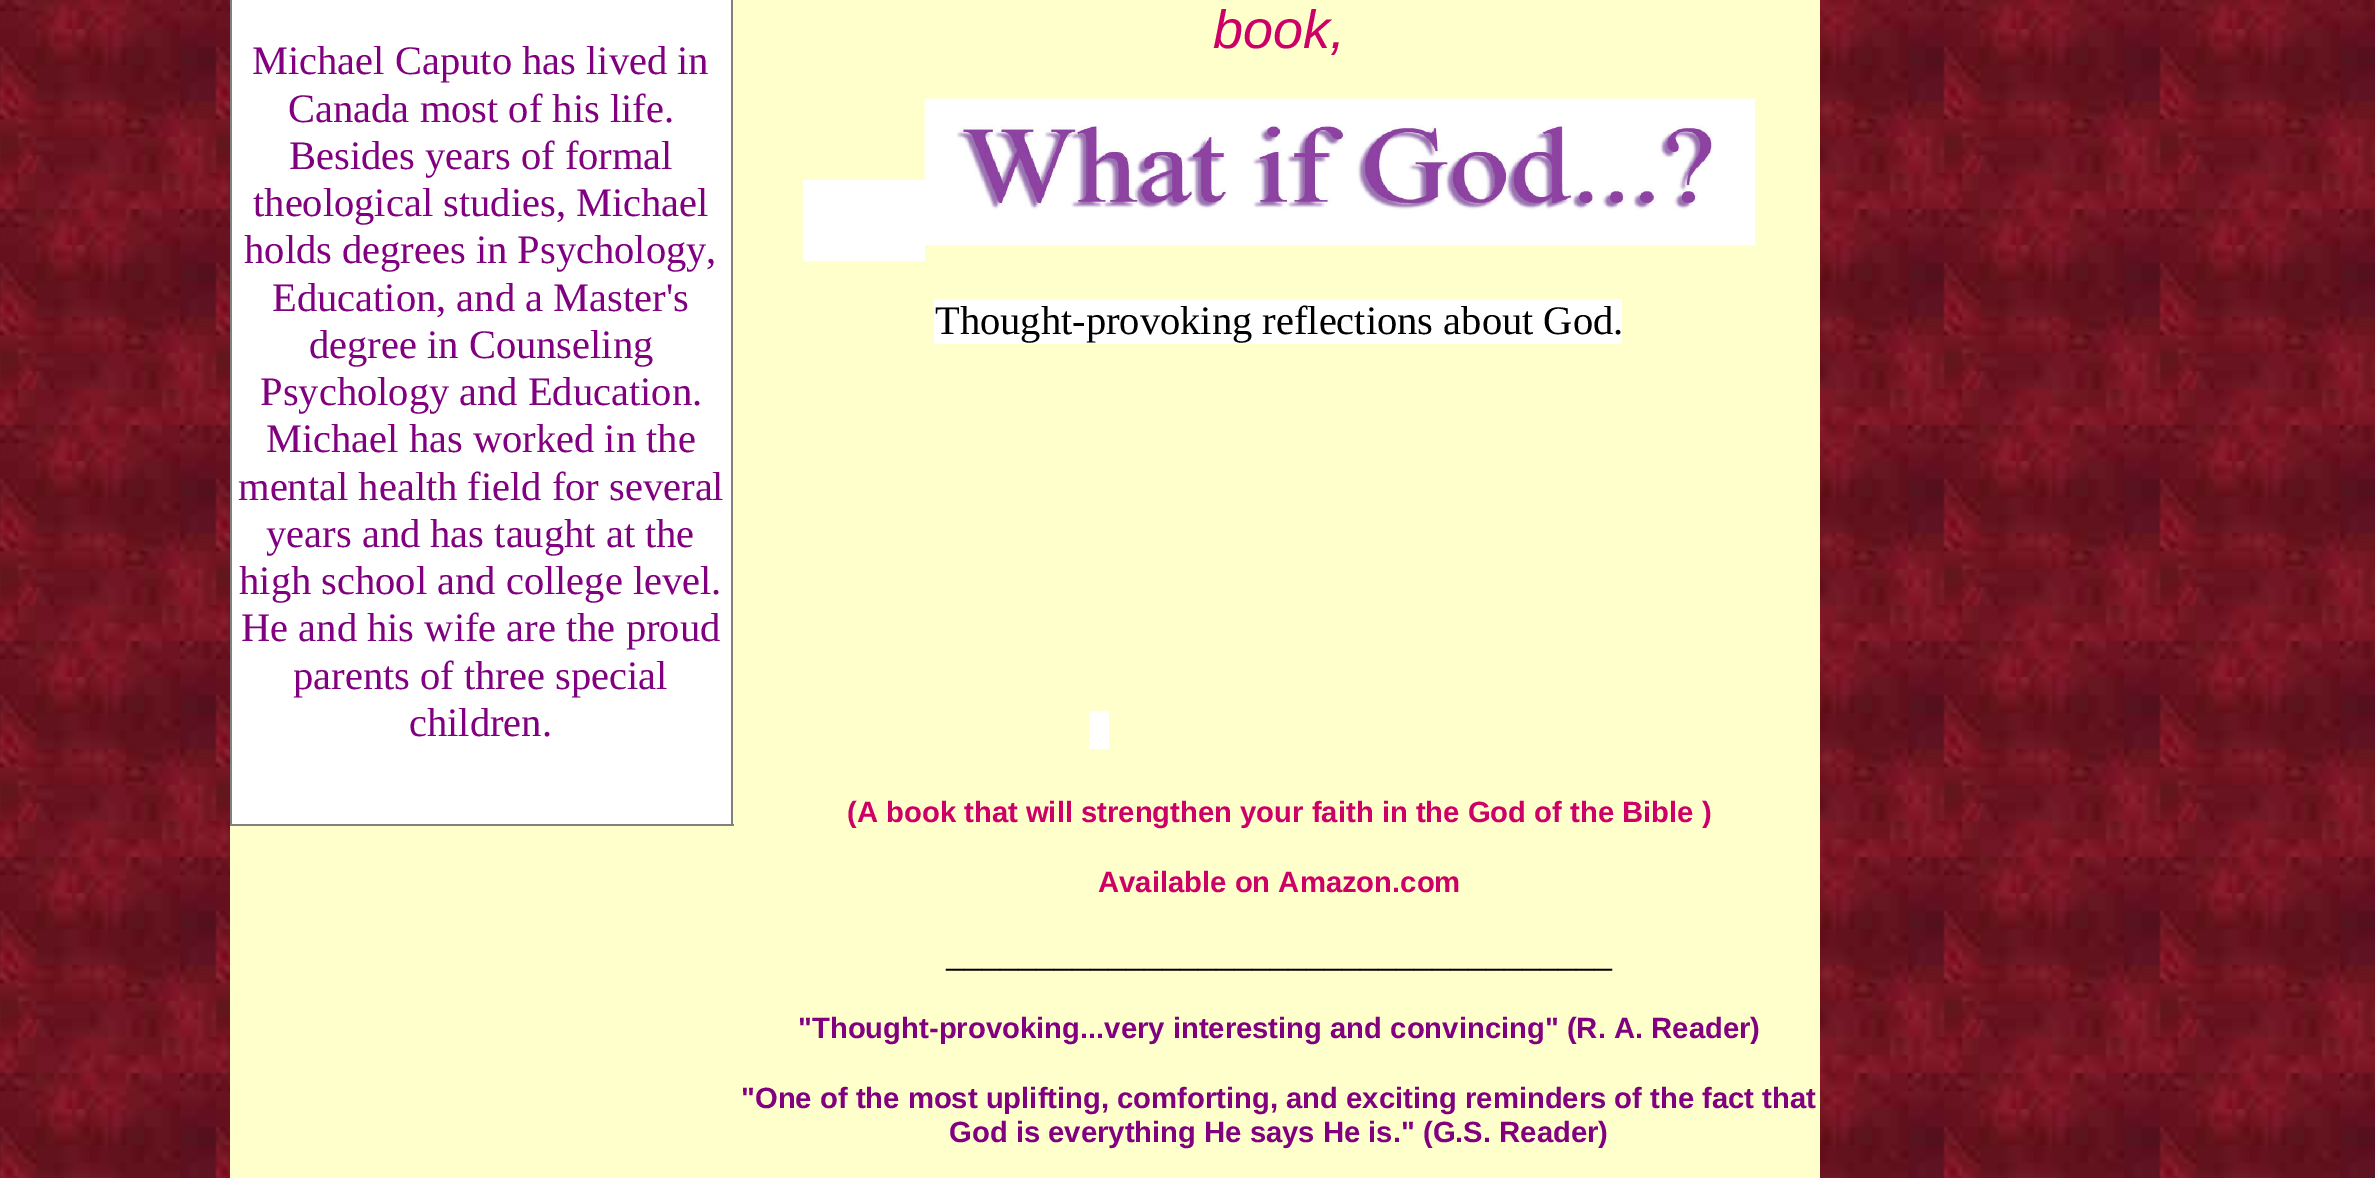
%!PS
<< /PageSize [2375 1178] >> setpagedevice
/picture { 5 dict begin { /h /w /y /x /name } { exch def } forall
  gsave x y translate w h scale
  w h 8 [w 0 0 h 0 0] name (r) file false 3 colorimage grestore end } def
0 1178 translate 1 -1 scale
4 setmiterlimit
1 setgray
0 0 2375 1178 rectfill
(img1.rgb) 0 0 2375 1178 picture
1 1 0.8 setrgbcolor
230 0 1590 1178 rectfill
0.502 setgray
731 0 2 826 rectfill
230 824 504 2 rectfill
230 0 2 826 rectfill
1 setgray
232 0 499 824 rectfill
/LiberationSerif-Regular [40.5 0 0 -40.5 0 0] selectfont
0.502 0 0.502 setrgbcolor
252 74 moveto (Michael Caputo has lived in) show
288 122 moveto (Canada most of his life.) show
289 169 moveto (Besides years of formal) show
253 216 moveto (theological studies, Michael) show
244 263 moveto (holds degrees in Psychology,) show
272 311 moveto (Education, and a Master's) show
309 358 moveto (degree in Counseling) show
260 405 moveto (Psychology and Education.) show
266 452 moveto (Michael has worked in the) show
238 500 moveto (mental health field for several) show
266 547 moveto (years and has taught at the) show
239 594 moveto (high school and college level.) show
241 641 moveto (He and his wife are the proud) show
293 689 moveto (parents of three special) show
409 736 moveto (children.) show
/LiberationSans-Italic [54 0 0 -54 0 0] selectfont
0.8 0 0.4 setrgbcolor
1213 48 moveto (book,) show
1 setgray
803 180 122 81 rectfill
(img2.rgb) 924 98 831 112 picture
925 210 830 35 rectfill
934 299 688 45 rectfill
/LiberationSerif-Regular [40.5 0 0 -40.5 0 0] selectfont
0 setgray
935 334 moveto (Thought-provoking reflections about God.) show
1 setgray
1089 711 20 38 rectfill
/LiberationSans-Bold [29.25 0 0 -29.25 0 0] selectfont
0.8 0 0.4 setrgbcolor
847 822 moveto (\(A book that will strengthen your faith in the God of the Bible \)) show
1098 892 moveto (Available on Amazon.com) show
/LiberationSerif-Regular [36 0 0 -36 0 0] selectfont
0 setgray
946 966 moveto (_____________________________________) show
/LiberationSans-Bold [29.25 0 0 -29.25 0 0] selectfont
0.502 0 0.502 setrgbcolor
798 1038 moveto ("Thought-provoking...very interesting and convincing" \(R. A. Reader\)) show
741 1108 moveto ("One of the most uplifting, comforting, and exciting reminders of the fact that) show
949 1142 moveto (God is everything He says He is." \(G.S. Reader\)) show
showpage
